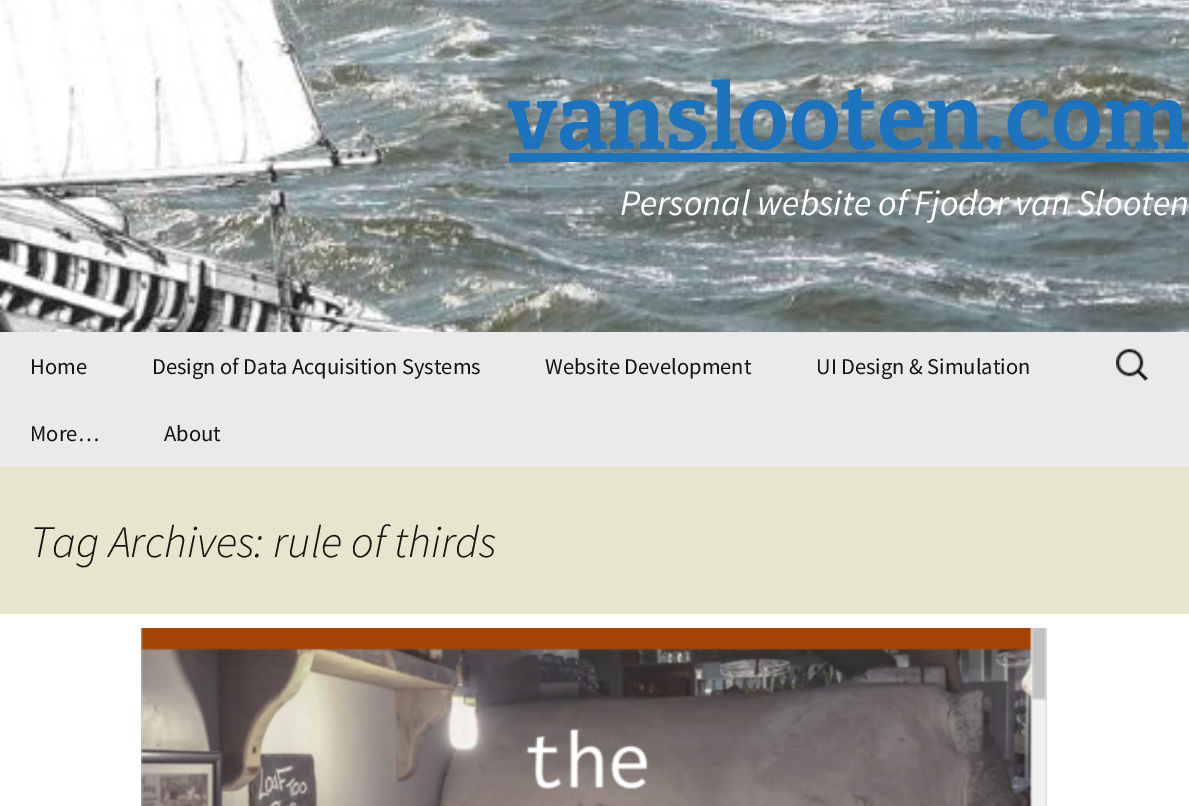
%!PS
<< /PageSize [1189 806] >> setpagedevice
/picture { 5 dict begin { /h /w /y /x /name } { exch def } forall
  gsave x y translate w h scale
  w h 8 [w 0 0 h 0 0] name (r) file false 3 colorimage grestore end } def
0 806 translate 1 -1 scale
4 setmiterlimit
1 setgray
0 0 1189 806 rectfill
(img1.rgb) 0 0 1189 332 picture
/Bitter-Thin [90 0 0 -90 0 0] selectfont
0.118 0.451 0.745 setrgbcolor
508 149 moveto (vanslooten.com) show
509 153 680 9 rectfill
/SourceSansPro-Italic [36 0 0 -36 0 0] selectfont
1 setgray
620 215 moveto (Personal website of Fjodor van Slooten) show
0.918 setgray
0 332 1189 135 rectfill
/SourceSansPro-Regular [22.5 0 0 -22.5 0 0] selectfont
0.078 0.078 0.071 setrgbcolor
30 374 moveto (Home) show
152 374 moveto (Design of Data Acquisition Systems) show
545 374 moveto (Website Development) show
816 374 moveto (UI Design & Simulation) show
30 441 moveto (More…) show
164 441 moveto (About) show
(img2.rgb) 1116 348 32 33 picture
0.91 0.898 0.808 setrgbcolor
0 467 1189 147 rectfill
/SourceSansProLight-LightItalic [45 0 0 -45 0 0] selectfont
0.078 0.078 0.071 setrgbcolor
30 557 moveto (Tag Archives: rule of thirds) show
(img3.rgb) 141 628 906 178 picture
showpage
